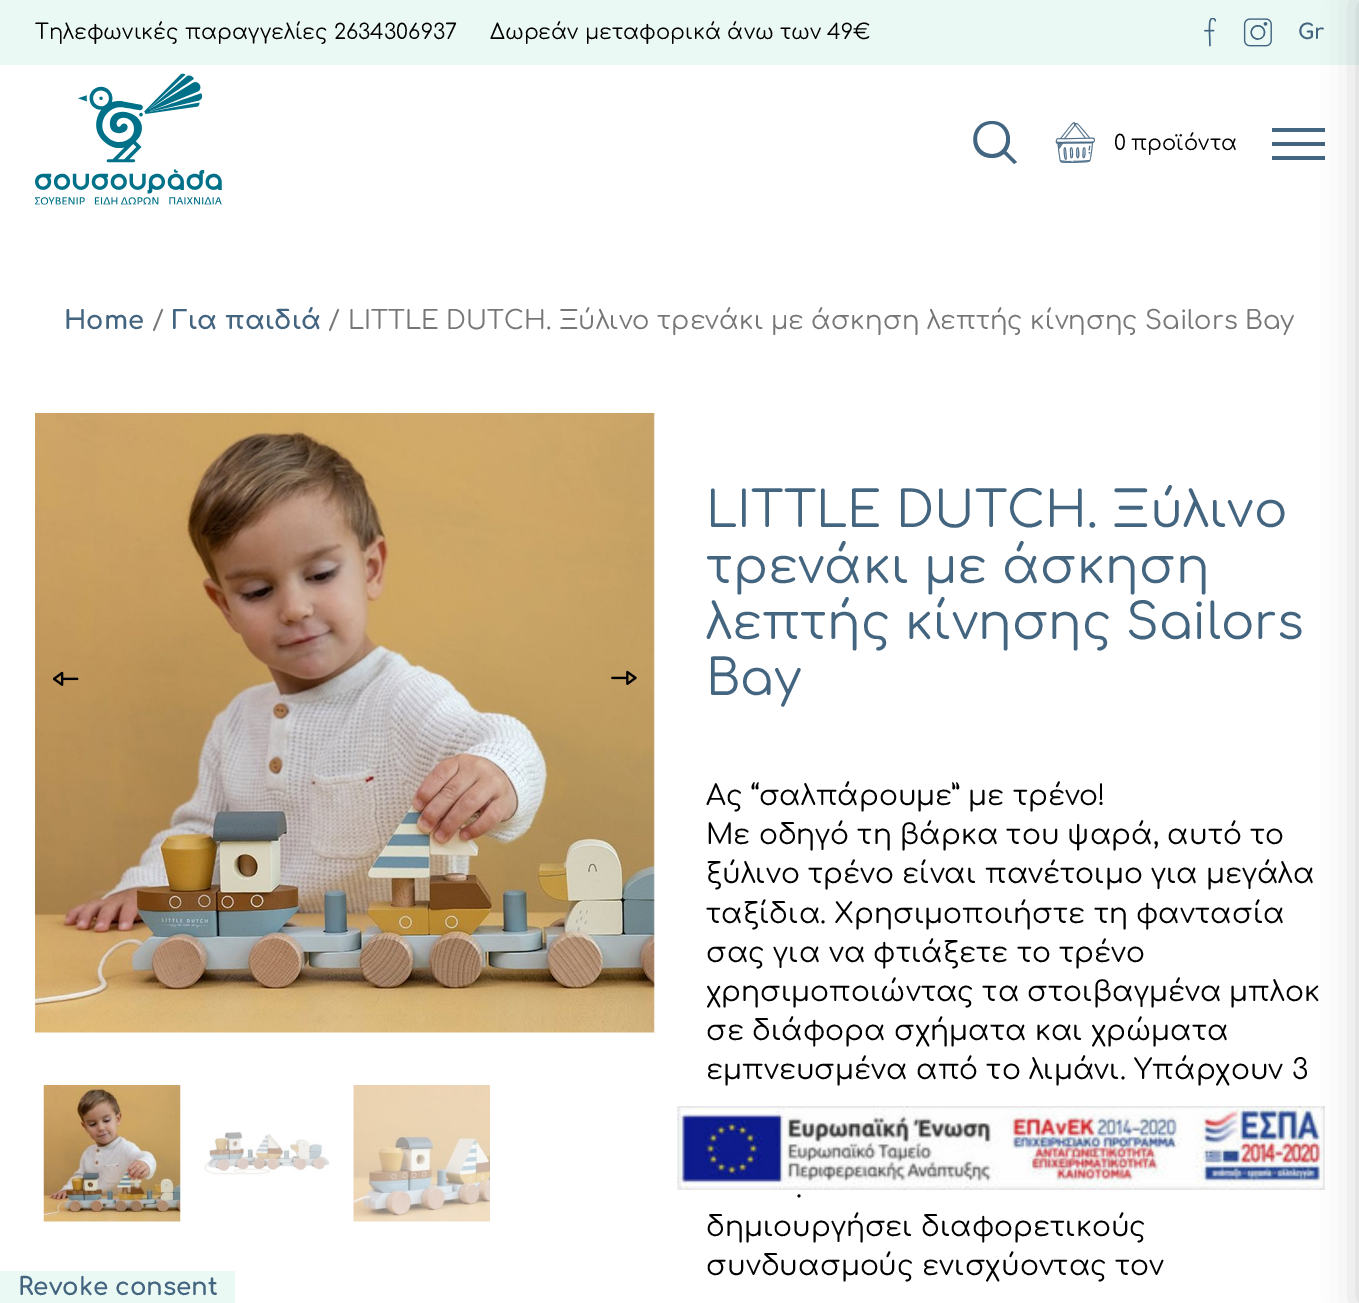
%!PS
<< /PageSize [1359 1303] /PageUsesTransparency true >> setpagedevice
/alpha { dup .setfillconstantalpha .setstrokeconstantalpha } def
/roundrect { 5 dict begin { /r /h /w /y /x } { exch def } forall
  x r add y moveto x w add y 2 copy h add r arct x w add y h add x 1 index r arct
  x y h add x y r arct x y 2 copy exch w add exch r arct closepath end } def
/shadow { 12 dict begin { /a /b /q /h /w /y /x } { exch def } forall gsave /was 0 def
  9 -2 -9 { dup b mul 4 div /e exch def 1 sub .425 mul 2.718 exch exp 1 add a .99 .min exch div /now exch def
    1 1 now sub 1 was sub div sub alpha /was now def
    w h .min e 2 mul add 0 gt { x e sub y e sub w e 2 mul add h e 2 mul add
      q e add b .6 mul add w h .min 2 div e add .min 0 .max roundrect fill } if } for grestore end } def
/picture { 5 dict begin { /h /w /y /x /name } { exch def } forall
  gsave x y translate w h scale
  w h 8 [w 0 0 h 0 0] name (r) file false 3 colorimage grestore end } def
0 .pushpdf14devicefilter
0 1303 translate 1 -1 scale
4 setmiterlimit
1 setgray
0 0 1359 1303 rectfill
0.922 0.976 0.961 setrgbcolor
0 0 1359 65 rectfill
/Comfortaa-Regular [21 0 0 -21 0 0] selectfont
0 setgray
35 39 moveto (Τηλεφωνικές παραγγελίες 2634306937) show
490 39 moveto (Δωρεάν μεταφορικά άνω των 49€) show
(img1.rgb) 1204 18 12 29 picture
(img2.rgb) 1243 18 29 29 picture
/Comfortaa-Bold [21 0 0 -21 0 0] selectfont
0.267 0.396 0.498 setrgbcolor
1298 39 moveto (Gr) show
(img3.rgb) 35 73 187 132 picture
0.259 0.396 0.506 setrgbcolor
newpath 1017 162 moveto 1014 164 lineto 1001 151 lineto 1004 149 lineto closepath 992 158 moveto 967 158 967 121 992 121 curveto 1016 121 1016 158 992 158 curveto closepath 992 154 moveto 1011 154 1011 124 992 124 curveto 972 124 972 154 992 154 curveto closepath fill
(img4.rgb) 1055 122 40 41 picture
/Comfortaa-Regular [21 0 0 -21 0 0] selectfont
0 setgray
1114 150 moveto (0) show
1131 150 moveto (προϊόντα) show
0.267 0.396 0.498 setrgbcolor
1272 142 53 4 rectfill
1272 128 53 4 rectfill
1272 156 53 4 rectfill
(img12.rgb) 677 1106 648 84 picture
0 setgray
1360 0 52 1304 0 17.5 0.2 shadow
/Comfortaa-Bold [25.75 0 0 -25.75 0 0] selectfont
0.267 0.396 0.498 setrgbcolor
64 329 moveto (Home) show
/Comfortaa-Regular [25.75 0 0 -25.75 0 0] selectfont
0.463 setgray
152 329 moveto (/) show
/Comfortaa-Bold [25.75 0 0 -25.75 0 0] selectfont
0.267 0.396 0.498 setrgbcolor
172 329 moveto (Για παιδιά) show
/Comfortaa-Regular [25.75 0 0 -25.75 0 0] selectfont
0.463 setgray
328 329 moveto (/ LITTLE DUTCH. Ξύλινο τρενάκι με άσκηση λεπτής κίνησης Sailors Bay) show
(img5.rgb) 35 413 620 620 picture
(img6.rgb) 653 413 2 620 picture
(img7.rgb) 53 671 26 15 picture
(img8.rgb) 611 670 26 15 picture
(img9.rgb) 43 1085 138 137 picture
(img10.rgb) 203 1131 127 45 picture
(img11.rgb) 353 1085 137 137 picture
/Comfortaa-Regular [49.5 0 0 -49.5 0 0] selectfont
0.267 0.396 0.498 setrgbcolor
706 527 moveto (LITTLE DUTCH. Ξύλινο) show
706 583 moveto (τρενάκι με άσκηση) show
706 639 moveto (λεπτής κίνησης Sailors) show
706 695 moveto (Bay) show
/Comfortaa-Regular [28 0 0 -28 0 0] selectfont
0 setgray
706 805 moveto (Ας “σαλπάρουμε” με τρένο!) show
706 844 moveto (Με οδηγό τη βάρκα του ψαρά, αυτό το) show
706 883 moveto (ξύλινο τρένο είναι πανέτοιμο για μεγάλα) show
706 923 moveto (ταξίδια. Χρησιμοποιήστε τη φαντασία) show
706 962 moveto (σας για να φτιάξετε το τρένο) show
706 1001 moveto (χρησιμοποιώντας τα στοιβαγμένα μπλοκ) show
706 1040 moveto (σε διάφορα σχήματα και χρώματα) show
706 1079 moveto (εμπνευσμένα από το λιμάνι. Υπάρχουν 3) show
796 1197 moveto (.) show
706 1236 moveto (δημιουργήσει διαφορετικούς) show
706 1275 moveto (συνδυασμούς ενισχύοντας τον) show
0.922 0.976 0.961 setrgbcolor
0 1271 235 32 rectfill
/Comfortaa-Bold [24.5 0 0 -24.5 0 0] selectfont
0.267 0.396 0.498 setrgbcolor
18 1295 moveto (Revoke consent) show
.poppdf14devicefilter showpage
